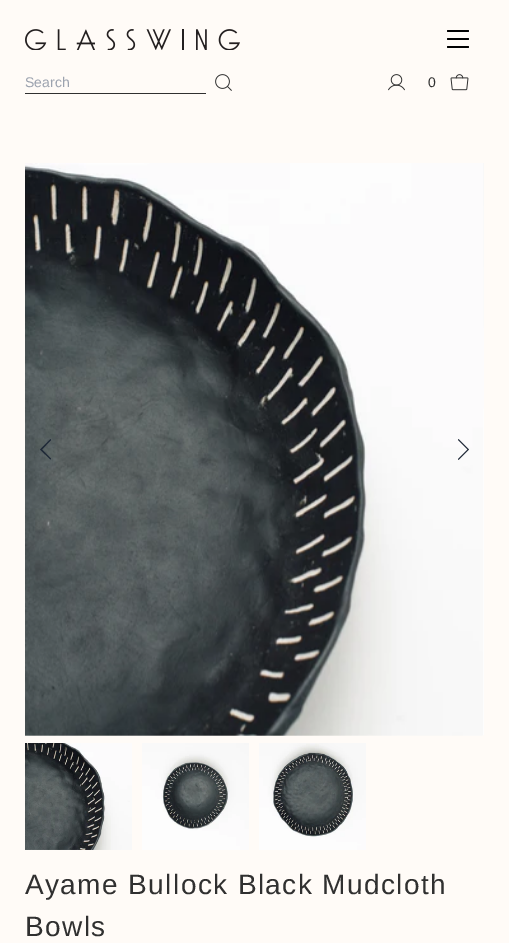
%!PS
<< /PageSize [509 943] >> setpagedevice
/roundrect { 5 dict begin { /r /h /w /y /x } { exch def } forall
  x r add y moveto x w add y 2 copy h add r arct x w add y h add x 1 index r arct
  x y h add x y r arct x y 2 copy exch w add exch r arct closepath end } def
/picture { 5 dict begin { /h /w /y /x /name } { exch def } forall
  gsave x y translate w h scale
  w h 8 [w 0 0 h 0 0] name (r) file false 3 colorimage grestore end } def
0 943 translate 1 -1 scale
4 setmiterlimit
1 0.984 0.969 setrgbcolor
0 0 509 943 rectfill
(img1.rgb) 25 29 215 21 picture
0 setgray
447 30 22 2 1 roundrect fill
447 38 22 2 1 roundrect fill
447 46 22 2 1 roundrect fill
0.188 setgray
25 93 181 1 rectfill
/LiberationSans-Regular [14 0 0 -14 0 0] selectfont
0.612 0.639 0.686 setrgbcolor
25 87 moveto (Search) show
(img2.rgb) 215 74 17 17 picture
(img3.rgb) 388 74 17 17 picture
0.188 setgray
428 87 moveto (0) show
(img4.rgb) 450 74 19 17 picture
(img5.rgb) 25 163 458 573 picture
(img6.rgb) 483 163 1 572 picture
0.122 0.161 0.216 setrgbcolor
newpath 50.5 459.5 moveto 51 458.5 lineto 42 449.5 lineto 51 440 lineto 50.5 439 lineto 40 449.5 lineto closepath eofill
newpath 458.5 460 moveto 458 459 lineto 467.5 449.5 lineto 458 440 lineto 458.5 439 lineto 469 449.5 lineto closepath fill
(img7.rgb) 25 743 107 107 picture
(img8.rgb) 142 743 107 107 picture
(img9.rgb) 259 743 107 107 picture
/LiberationSans-Regular [28 0 0 -28 0 0] selectfont
0.188 setgray
25 894 moveto 1.4 0 (Ayame Bullock Black Mudcloth) ashow
25 936 moveto 1.4 0 (Bowls) ashow
showpage
